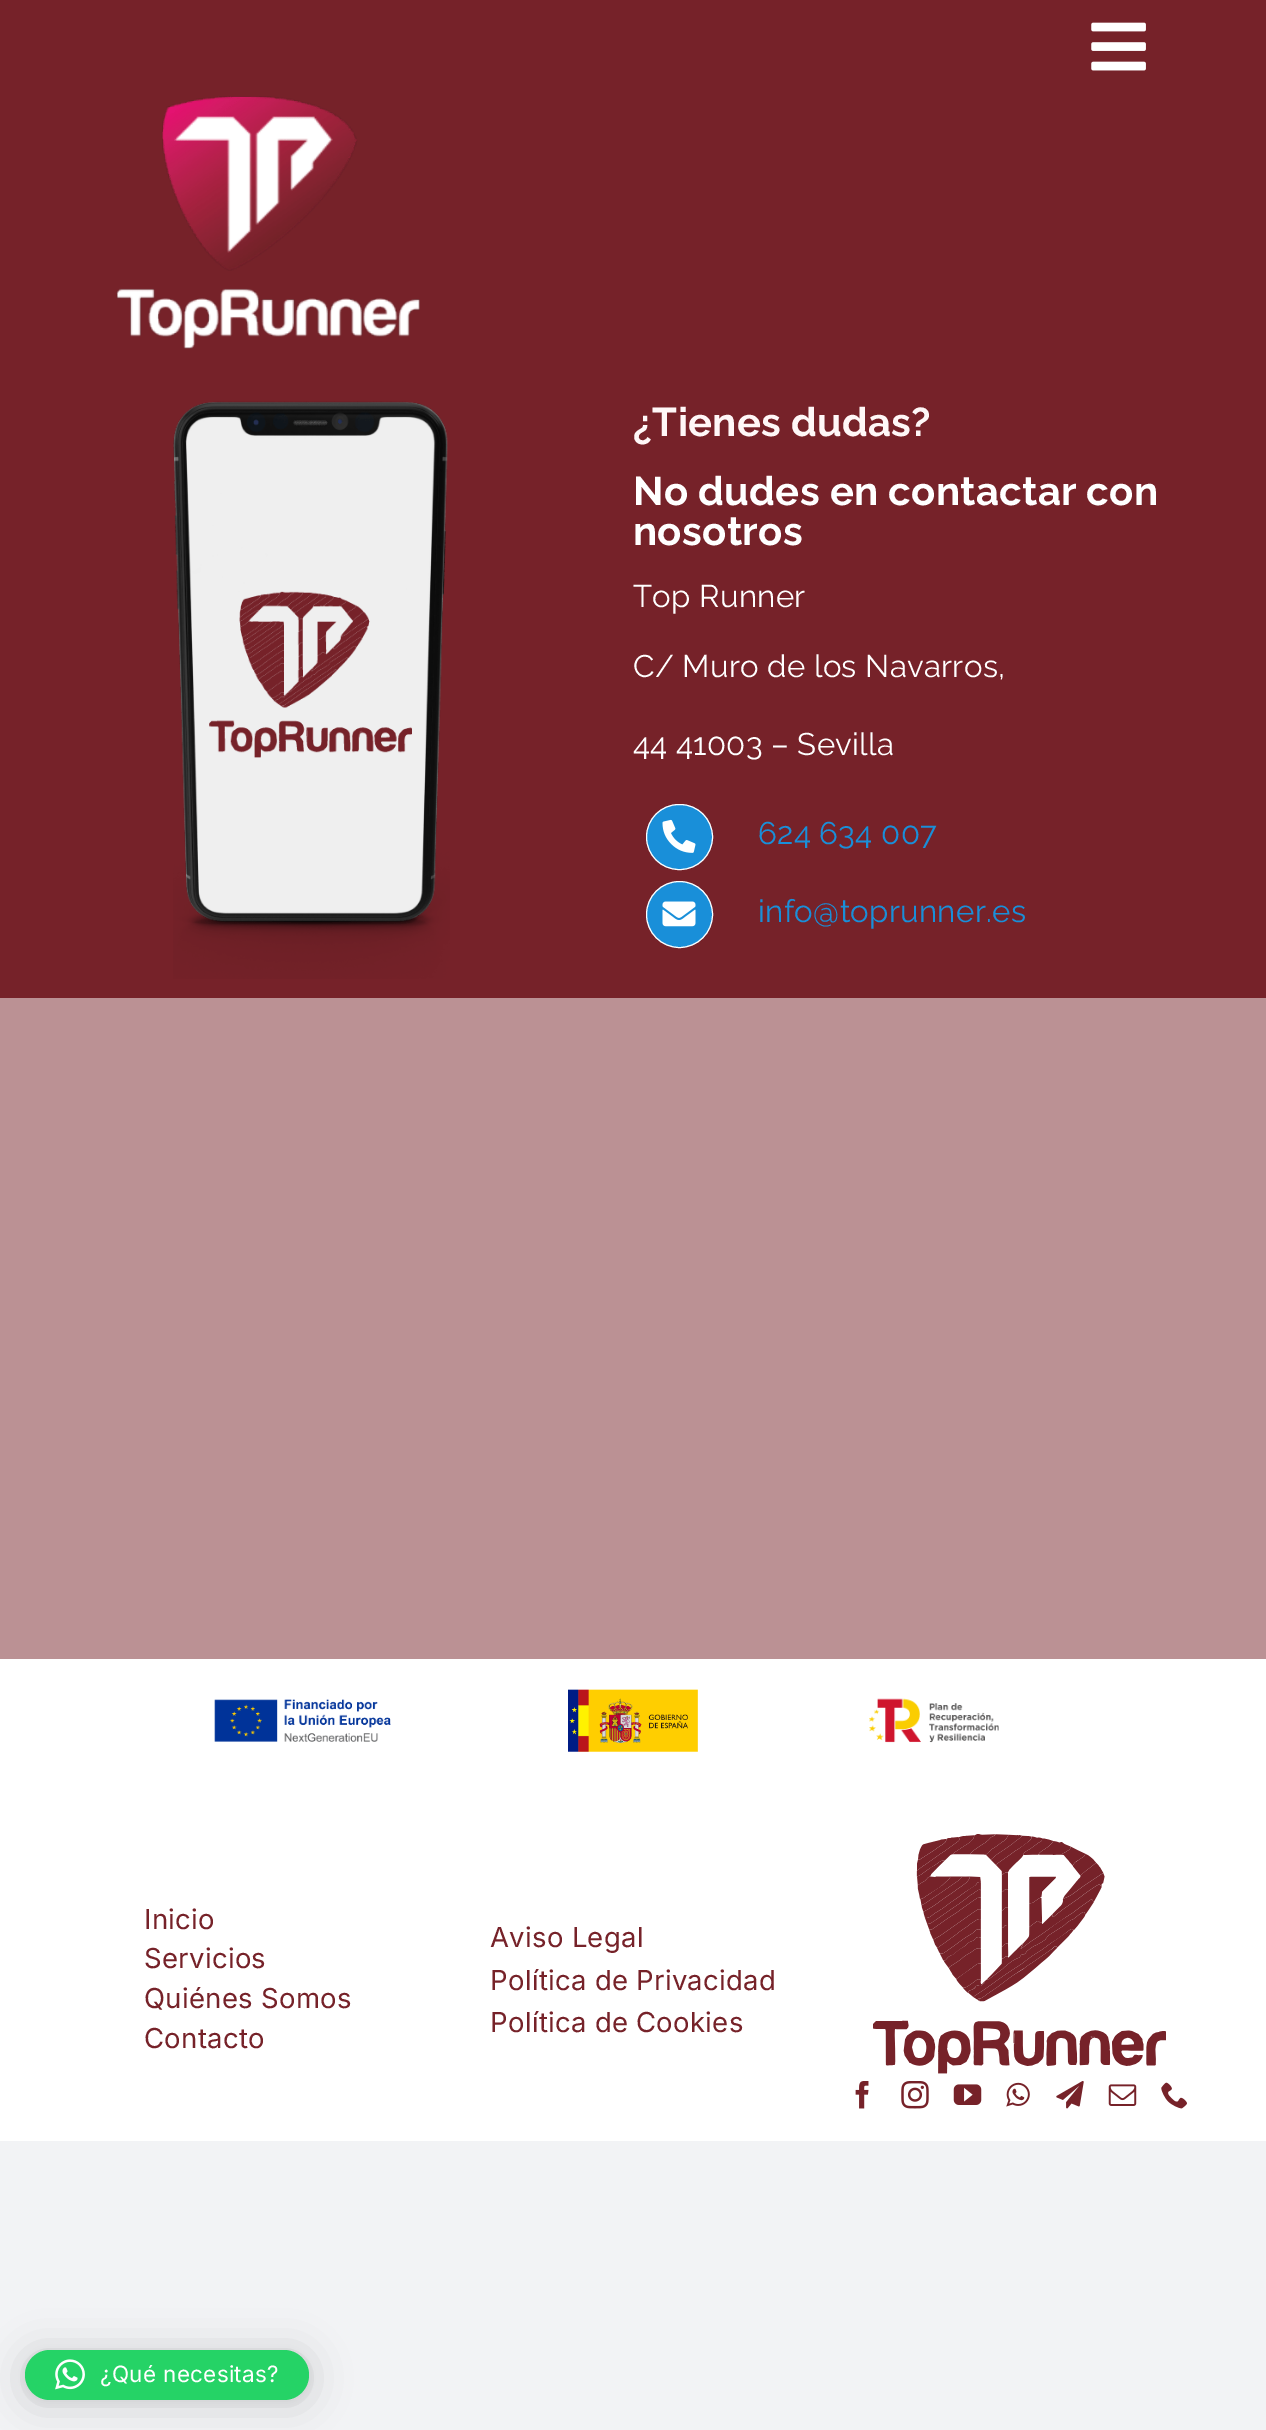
%!PS
<< /PageSize [1266 2430] /PageUsesTransparency true >> setpagedevice
/alpha { dup .setfillconstantalpha .setstrokeconstantalpha } def
/roundrect { 5 dict begin { /r /h /w /y /x } { exch def } forall
  x r add y moveto x w add y 2 copy h add r arct x w add y h add x 1 index r arct
  x y h add x y r arct x y 2 copy exch w add exch r arct closepath end } def
/shadow { 12 dict begin { /a /b /q /h /w /y /x } { exch def } forall gsave /was 0 def
  9 -2 -9 { dup b mul 4 div /e exch def 1 sub .425 mul 2.718 exch exp 1 add a .99 .min exch div /now exch def
    1 1 now sub 1 was sub div sub alpha /was now def
    w h .min e 2 mul add 0 gt { x e sub y e sub w e 2 mul add h e 2 mul add
      q e add b .6 mul add w h .min 2 div e add .min 0 .max roundrect fill } if } for grestore end } def
/picture { 5 dict begin { /h /w /y /x /name } { exch def } forall
  gsave x y translate w h scale
  w h 8 [w 0 0 h 0 0] name (r) file false 3 colorimage grestore end } def
0 .pushpdf14devicefilter
0 2430 translate 1 -1 scale
4 setmiterlimit
0.949 0.953 0.961 setrgbcolor
0 0 1266 2430 rectfill
1 setgray
0 1659 1266 482 rectfill
0.463 0.133 0.161 setrgbcolor
0 0 1266 998 rectfill
(img1.rgb) 1091 22 55 49 picture
0.733 0.569 0.58 setrgbcolor
0 998 1266 661 rectfill
(img2.rgb) 116 96 304 253 picture
(img3.rgb) 173 401 277 578 picture
/Raleway-Bold [40 0 0 -40 0 0] selectfont
1 0.969 0.969 setrgbcolor
633 436 moveto 0.3 0 (¿Tienes dudas?) ashow
1 setgray
633 505 moveto 0.3 0 (No dudes en contactar con) ashow
633 545 moveto 0.3 0 (nosotros) ashow
/Raleway-Regular [31.25 0 0 -31.25 0 0] selectfont
633 607 moveto 0.3 0 (Top Runner) ashow
633 677 moveto 0.3 0 (C/ Muro de los Navarros,) ashow
633 755 moveto 0.3 0 (44 41003 – Sevilla) ashow
0.098 0.561 0.851 setrgbcolor
646.5 804.5 66 65 32.5 roundrect gsave fill grestore
1 setgray
stroke
(img4.rgb) 662 819 34 34 picture
0.098 0.561 0.851 setrgbcolor
758 844 moveto 0.3 0 (624 634 007) ashow
newpath 679.5 914.5 33 0 360 arc closepath gsave fill grestore
1 setgray
stroke
(img5.rgb) 662 901 34 26 picture
0.098 0.561 0.851 setrgbcolor
758 922 moveto 0.3 0 (info@toprunner.es) ashow
(img6.rgb) 214 1699 177 43 picture
(img7.rgb) 568 1689 130 63 picture
(img8.rgb) 869 1698 130 45 picture
/Inter-Regular [27.5 0 0 -27.5 0 0] selectfont
0.463 0.133 0.161 setrgbcolor
144 1929 moveto 0.3 0 (Inicio) ashow
144 1968 moveto 0.3 0 (Servicios) ashow
144 2008 moveto 0.3 0 (Quiénes Somos) ashow
144 2048 moveto 0.3 0 (Contacto) ashow
490 1947 moveto 0.3 0 (Aviso Legal) ashow
490 1990 moveto 0.3 0 (Política de Privacidad) ashow
490 2032 moveto 0.3 0 (Política de Cookies) ashow
(img9.rgb) 873 1834 293 240 picture
(img10.rgb) 855 2081 14 28 picture
(img11.rgb) 901 2081 28 28 picture
(img12.rgb) 953 2084 29 21 picture
(img13.rgb) 1006 2082 24 25 picture
(img14.rgb) 1056 2081 28 28 picture
(img15.rgb) 1108 2084 29 22 picture
(img16.rgb) 1161 2082 26 27 picture
0 setgray
25 2353 284 50 25 20 0.16 shadow
25 2351 284 50 25 4 0.06 shadow
0.145 0.827 0.4 setrgbcolor
25 2350 284 50 25 roundrect fill
(img17.rgb) 55 2359 30 31 picture
/Inter-Regular [22.5 0 0 -22.5 0 0] selectfont
1 setgray
100 2382 moveto 0.3 0 (¿Qué necesitas?) ashow
.poppdf14devicefilter showpage
